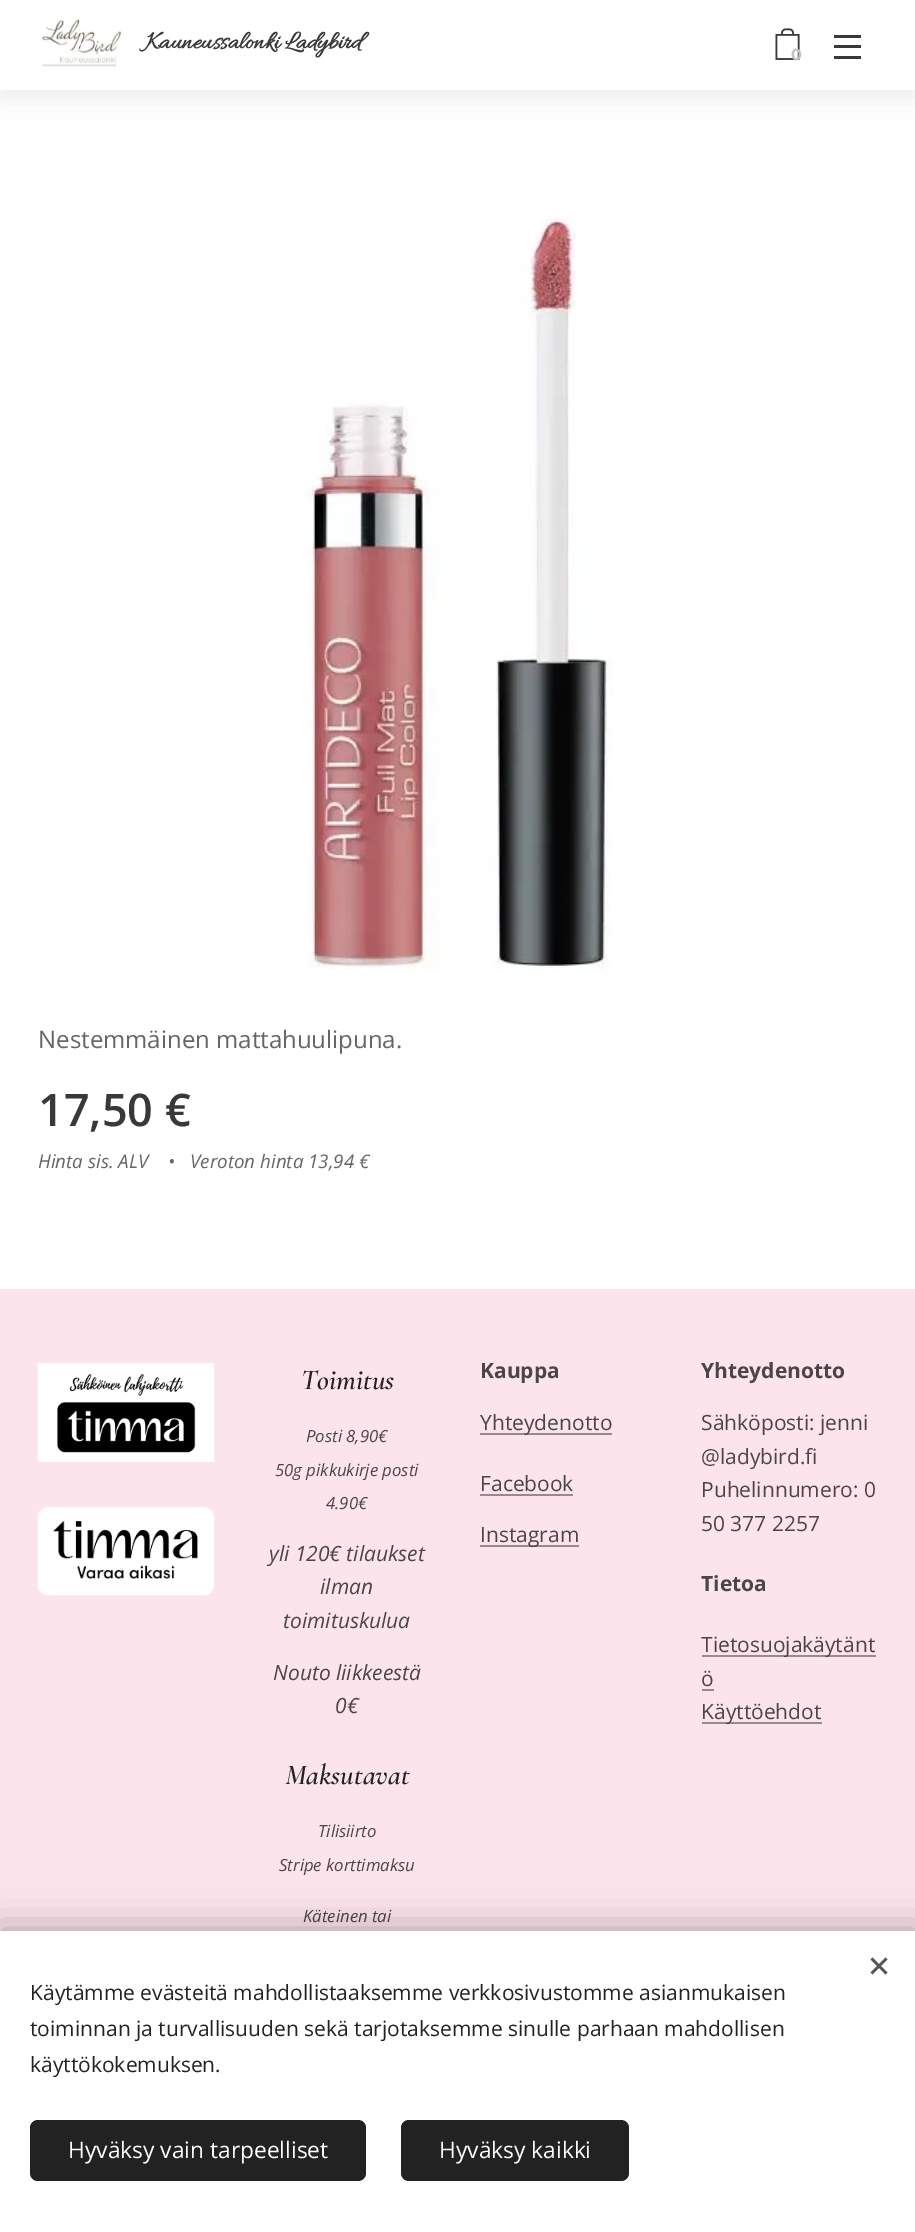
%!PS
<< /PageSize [915 2232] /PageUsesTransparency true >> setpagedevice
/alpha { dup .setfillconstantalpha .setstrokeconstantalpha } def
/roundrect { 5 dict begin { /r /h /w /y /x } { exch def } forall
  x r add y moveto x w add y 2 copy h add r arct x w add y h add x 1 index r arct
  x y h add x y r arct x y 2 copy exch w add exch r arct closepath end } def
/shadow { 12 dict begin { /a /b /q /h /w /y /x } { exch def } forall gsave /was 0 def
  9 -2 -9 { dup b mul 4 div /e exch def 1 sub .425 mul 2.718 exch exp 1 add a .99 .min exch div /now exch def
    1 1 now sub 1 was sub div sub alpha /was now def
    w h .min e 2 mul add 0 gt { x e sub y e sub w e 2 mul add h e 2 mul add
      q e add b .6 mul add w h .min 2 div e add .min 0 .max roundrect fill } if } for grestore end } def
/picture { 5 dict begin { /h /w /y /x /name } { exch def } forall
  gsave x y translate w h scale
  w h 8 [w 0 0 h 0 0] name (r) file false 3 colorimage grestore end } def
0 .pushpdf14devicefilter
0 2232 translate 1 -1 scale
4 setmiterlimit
1 setgray
0 0 915 2232 rectfill
0 setgray
0 8 915 90 0 11 0.07 shadow
1 setgray
0 0 915 90 rectfill
(img1.rgb) 41 19 81 48 picture
/Allura-Bold [25.75 0 0 -25.75 0 0] selectfont
0.224 setgray
145 48 moveto (Kauneussalonki Ladybird) show
(img2.rgb) 775 28 25 32 picture
/Montserrat-Bold [16 0 0 -16 0 0] selectfont
0.765 setgray
791 60 moveto (0) show
0.224 setgray
834 45 27 3 rectfill
834 35 27 3 rectfill
834 56 27 3 rectfill
(img3.rgb) 305 215 309 756 picture
/OpenSans-Regular [24 0 0 -24 0 0] selectfont
0.4 setgray
38 1048 moveto (Nestemmäinen mattahuulipuna.) show
/OpenSans-SemiBold [45 0 0 -45 0 0] selectfont
0.224 setgray
38 1126 moveto (17,50 €) show
/OpenSans-Italic [18.75 0 0 -18.75 0 0] selectfont
0.4 setgray
38 1168 moveto (Hinta sis. ALV) show
168 1168 moveto (•) show
190 1168 moveto (Veroton hinta 13,94 €) show
0.988 0.894 0.925 setrgbcolor
0 1289 915 642 rectfill
(img4.rgb) 37 1363 178 99 picture
(img5.rgb) 37 1507 178 89 picture
/Cormorant-SemiBoldItalic [29 0 0 -29 0 0] selectfont
0.149 0.133 0.137 setrgbcolor
301 1389 moveto (Toimitus) show
/OpenSans-Italic [16.75 0 0 -16.75 0 0] selectfont
0.298 0.267 0.278 setrgbcolor
306 1442 moveto (Posti 8,90€) show
275 1476 moveto (50g pikkukirje posti) show
326 1509 moveto (4.90€) show
/OpenSans-Italic [21 0 0 -21 0 0] selectfont
269 1561 moveto (yli 120€ tilaukset) show
320 1594 moveto (ilman) show
283 1628 moveto (toimituskulua) show
273 1680 moveto (Nouto liikkeestä) show
335 1713 moveto (0€) show
/Cormorant-SemiBoldItalic [29 0 0 -29 0 0] selectfont
0.149 0.133 0.137 setrgbcolor
285 1784 moveto (Maksutavat) show
/OpenSans-Italic [16.75 0 0 -16.75 0 0] selectfont
0.298 0.267 0.278 setrgbcolor
318 1837 moveto (Tilisiirto) show
279 1871 moveto (Stripe korttimaksu) show
303 1922 moveto (Käteinen tai) show
/OpenSans-Bold [21 0 0 -21 0 0] selectfont
480 1378 moveto (Kauppa) show
0.592 0.537 0.557 setrgbcolor
480 1433 132 2 rectfill
/OpenSans-Regular [21 0 0 -21 0 0] selectfont
0.298 0.267 0.278 setrgbcolor
480 1430 moveto (Yhteydenotto) show
480 1491 moveto (Facebook) show
0.592 0.537 0.557 setrgbcolor
480 1494 93 2 rectfill
480 1545 99 2 rectfill
0.298 0.267 0.278 setrgbcolor
480 1542 moveto (Instagram) show
/OpenSans-Bold [21 0 0 -21 0 0] selectfont
701 1378 moveto (Yhteydenotto) show
/OpenSans-Regular [21 0 0 -21 0 0] selectfont
701 1430 moveto (Sähköposti: jenni) show
701 1464 moveto (@ladybird.fi) show
701 1497 moveto (Puhelinnumero: 0) show
701 1531 moveto (50 377 2257) show
/OpenSans-Bold [21 0 0 -21 0 0] selectfont
701 1591 moveto (Tietoa) show
0.592 0.537 0.557 setrgbcolor
702 1655 174 2 rectfill
/OpenSans-Regular [21 0 0 -21 0 0] selectfont
0.298 0.267 0.278 setrgbcolor
701 1652 moveto (Tietosuojakäytänt) show
701 1686 moveto (ö) show
0.592 0.537 0.557 setrgbcolor
702 1689 12 2 rectfill
702 1722 120 2 rectfill
0.298 0.267 0.278 setrgbcolor
701 1719 moveto (Käyttöehdot) show
0 setgray
0 1931 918 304 0 19 0.33 shadow
1 setgray
0 1931 915 301 rectfill
0.333 setgray
newpath 870.5 1972.5 moveto 885.5 1957.5 lineto 887.5 1959.5 lineto 872.5 1974.5 lineto closepath fill
newpath 872.5 1957.5 moveto 887.5 1972.5 lineto 885.5 1974.5 lineto 870.5 1959.5 lineto closepath fill
0.149 0.133 0.137 setrgbcolor
30 2000 moveto (Käytämme evästeitä mahdollistaaksemme verkkosivustomme asianmukaisen) show
30 2036 moveto (toiminnan ja turvallisuuden sekä tarjotaksemme sinulle parhaan mahdollisen) show
30 2072 moveto (käyttökokemuksen.) show
0.133 setgray
30 2120 336 61 8 roundrect fill
/OpenSans-Regular [22.75 0 0 -22.75 0 0] selectfont
1 setgray
68 2158 moveto (Hyväksy vain tarpeelliset) show
0.133 setgray
401 2120 228 61 8 roundrect fill
1 setgray
439 2158 moveto (Hyväksy kaikki) show
.poppdf14devicefilter showpage
